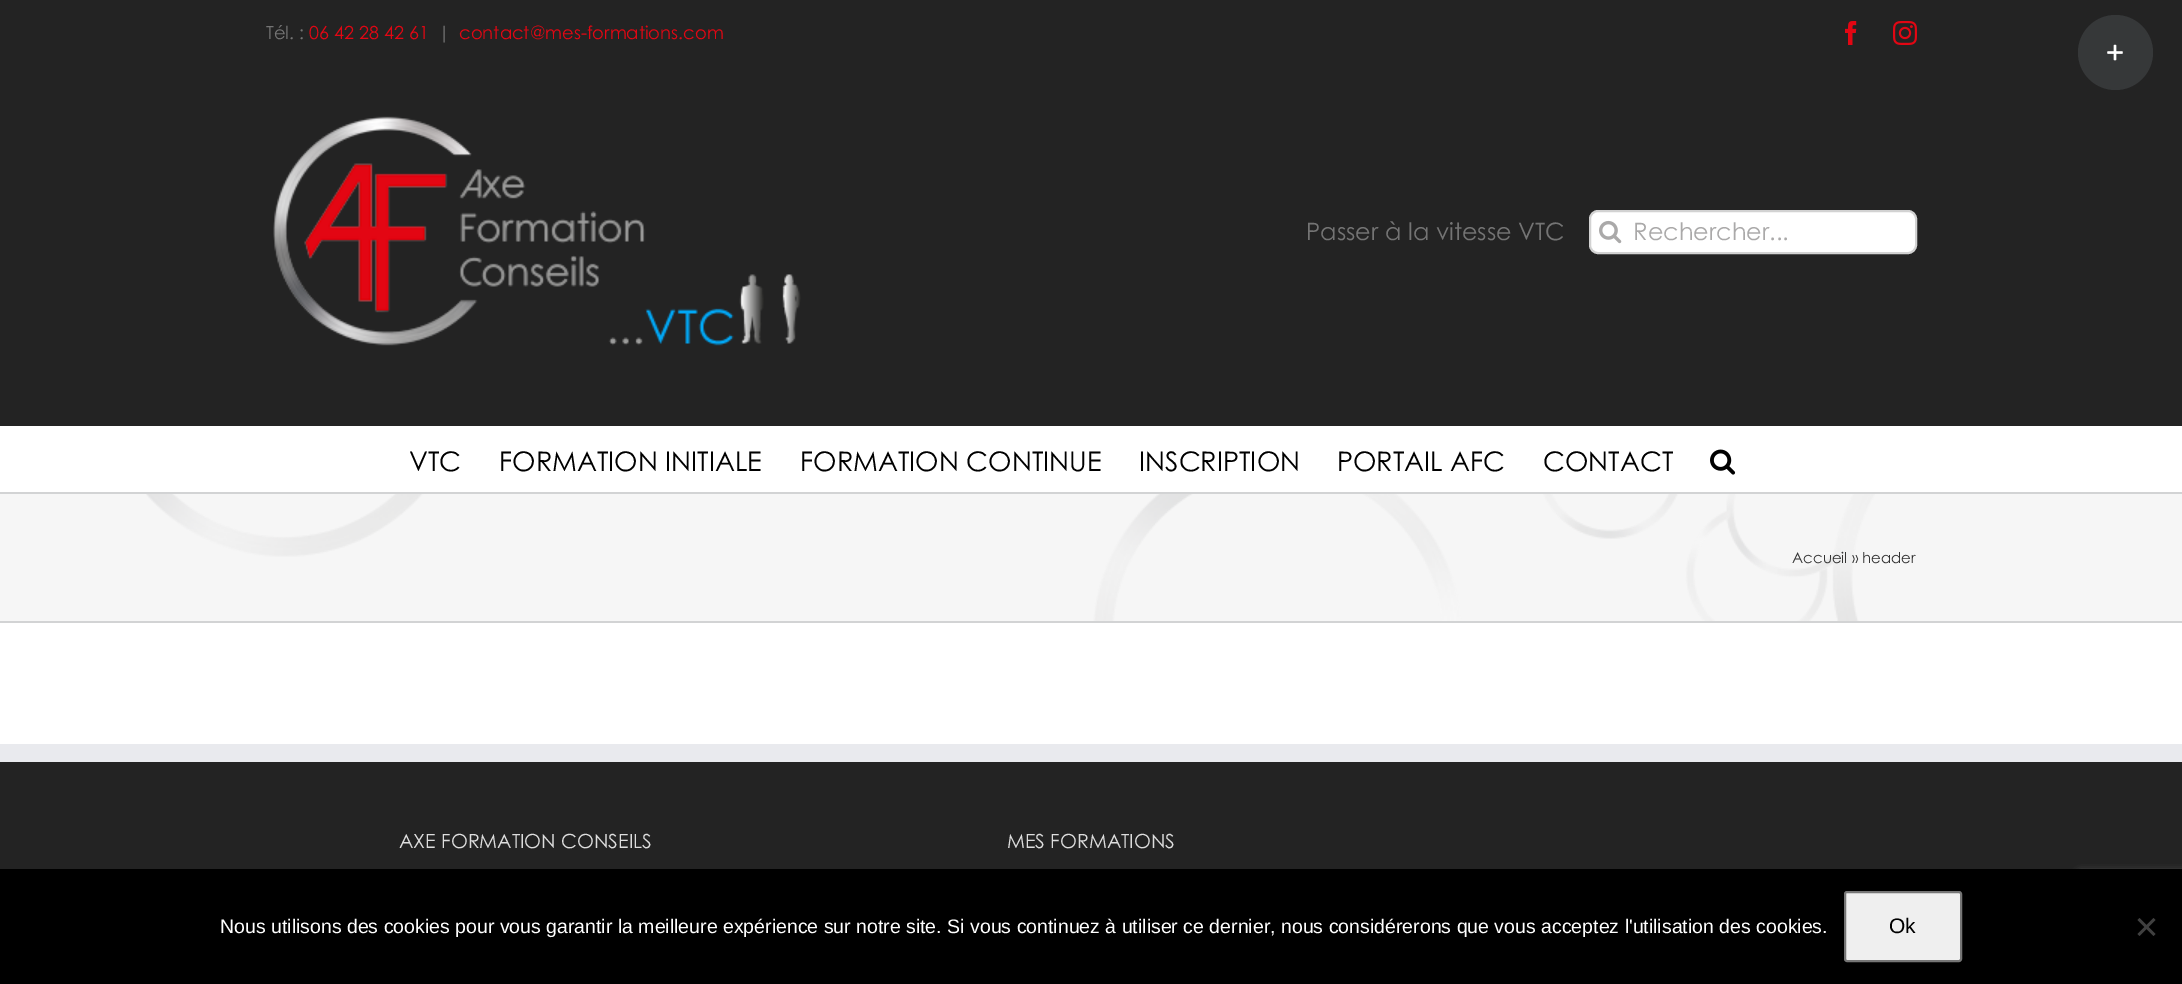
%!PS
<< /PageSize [2182 984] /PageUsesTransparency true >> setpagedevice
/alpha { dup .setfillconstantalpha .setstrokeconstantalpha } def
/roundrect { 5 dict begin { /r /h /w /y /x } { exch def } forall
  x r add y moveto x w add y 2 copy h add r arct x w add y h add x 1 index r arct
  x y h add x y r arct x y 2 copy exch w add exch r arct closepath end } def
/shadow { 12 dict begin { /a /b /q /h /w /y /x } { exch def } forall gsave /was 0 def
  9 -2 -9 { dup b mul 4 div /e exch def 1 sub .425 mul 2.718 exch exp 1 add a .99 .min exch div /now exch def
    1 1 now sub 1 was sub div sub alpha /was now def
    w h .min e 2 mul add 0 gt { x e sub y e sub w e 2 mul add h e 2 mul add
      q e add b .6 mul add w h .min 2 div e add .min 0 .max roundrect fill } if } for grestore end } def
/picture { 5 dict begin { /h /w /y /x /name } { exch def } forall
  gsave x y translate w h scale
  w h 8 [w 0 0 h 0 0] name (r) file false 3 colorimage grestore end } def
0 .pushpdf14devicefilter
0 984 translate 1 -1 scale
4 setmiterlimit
1 setgray
0 0 2182 984 rectfill
0.137 setgray
0 0 2182 426 rectfill
/CenturyGothic-Regular [18 0 0 -18 0 0] selectfont
0.455 setgray
266 39 moveto (Tél. :) show
0.89 0.024 0.075 setrgbcolor
309 39 moveto (06 42 28 42 61) show
0.455 setgray
438 39 moveto (|) show
0.89 0.024 0.075 setrgbcolor
459 39 moveto (contact@mes-formations.com) show
(img1.rgb) 1845 21 12 24 picture
(img2.rgb) 1893 21 24 24 picture
(img3.rgb) 273 116 528 230 picture
/CenturyGothic-Regular [24 0 0 -24 0 0] selectfont
0.455 setgray
1306 240 moveto (Passer à la vitesse VTC) show
1 setgray
1590 211 326 42 8 roundrect gsave fill grestore
0.824 setgray
2 setlinewidth
stroke
(img4.rgb) 1599 220 23 24 picture
0.667 0.663 0.663 setrgbcolor
1633 240 moveto (Rechercher...) show
/CenturyGothic-Regular [27 0 0 -27 0 0] selectfont
0 setgray
409 471 moveto (VTC) show
499 471 moveto (FORMATION INITIALE) show
800 471 moveto (FORMATION CONTINUE) show
1139 471 moveto (INSCRIPTION) show
1337 471 moveto (PORTAIL AFC) show
1543 471 moveto (CONTACT) show
(img5.rgb) 1710 449 26 26 picture
0.212 0.22 0.224 setrgbcolor
newpath 2115.5 52.5 37.5 0 360 arc closepath fill
(img6.rgb) 2107 44 16 17 picture
0.965 setgray
0 494 2182 127 rectfill
(img7.rgb) 146 494 1729 127 picture
0.824 0.827 0.831 setrgbcolor
0 492 2182 2 rectfill
0 621 2182 2 rectfill
/CenturyGothic-Regular [15 0 0 -15 0 0] selectfont
0.2 setgray
1792 563 moveto (Accueil » header) show
0.137 setgray
0 762 2182 107 rectfill
0.914 0.918 0.933 setrgbcolor
0 744 2182 18 rectfill
/CenturyGothic-Regular [19.5 0 0 -19.5 0 0] selectfont
0.867 setgray
399 848 moveto (AXE FORMATION CONSEILS) show
1007 848 moveto (MES FORMATIONS) show
0.502 setgray
2078 873 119 90 3 4 1 shadow
0 setgray
0 869 2182 115 rectfill
/LiberationSans-Regular [19.5 0 0 -19.5 0 0] selectfont
1 setgray
220 933 moveto (Nous utilisons des cookies pour vous garantir la meilleure expérience sur notre site. Si vous continuez à utiliser ce dernier, nous considérerons que vous acceptez l'utilisation des cookies.) show
0.937 setgray
1845 892 116 69 2 roundrect gsave fill grestore
0.463 setgray
stroke
/LiberationSans-Regular [21 0 0 -21 0 0] selectfont
0 setgray
1889 933 moveto (Ok) show
0.251 setgray
newpath 2153.5 918 moveto 2155.5 920 lineto 2139.5 936 lineto 2137.5 934 lineto closepath fill
newpath 2137.5 920 moveto 2139.5 918 lineto 2155.5 934 lineto 2153.5 936 lineto closepath fill
.poppdf14devicefilter showpage
